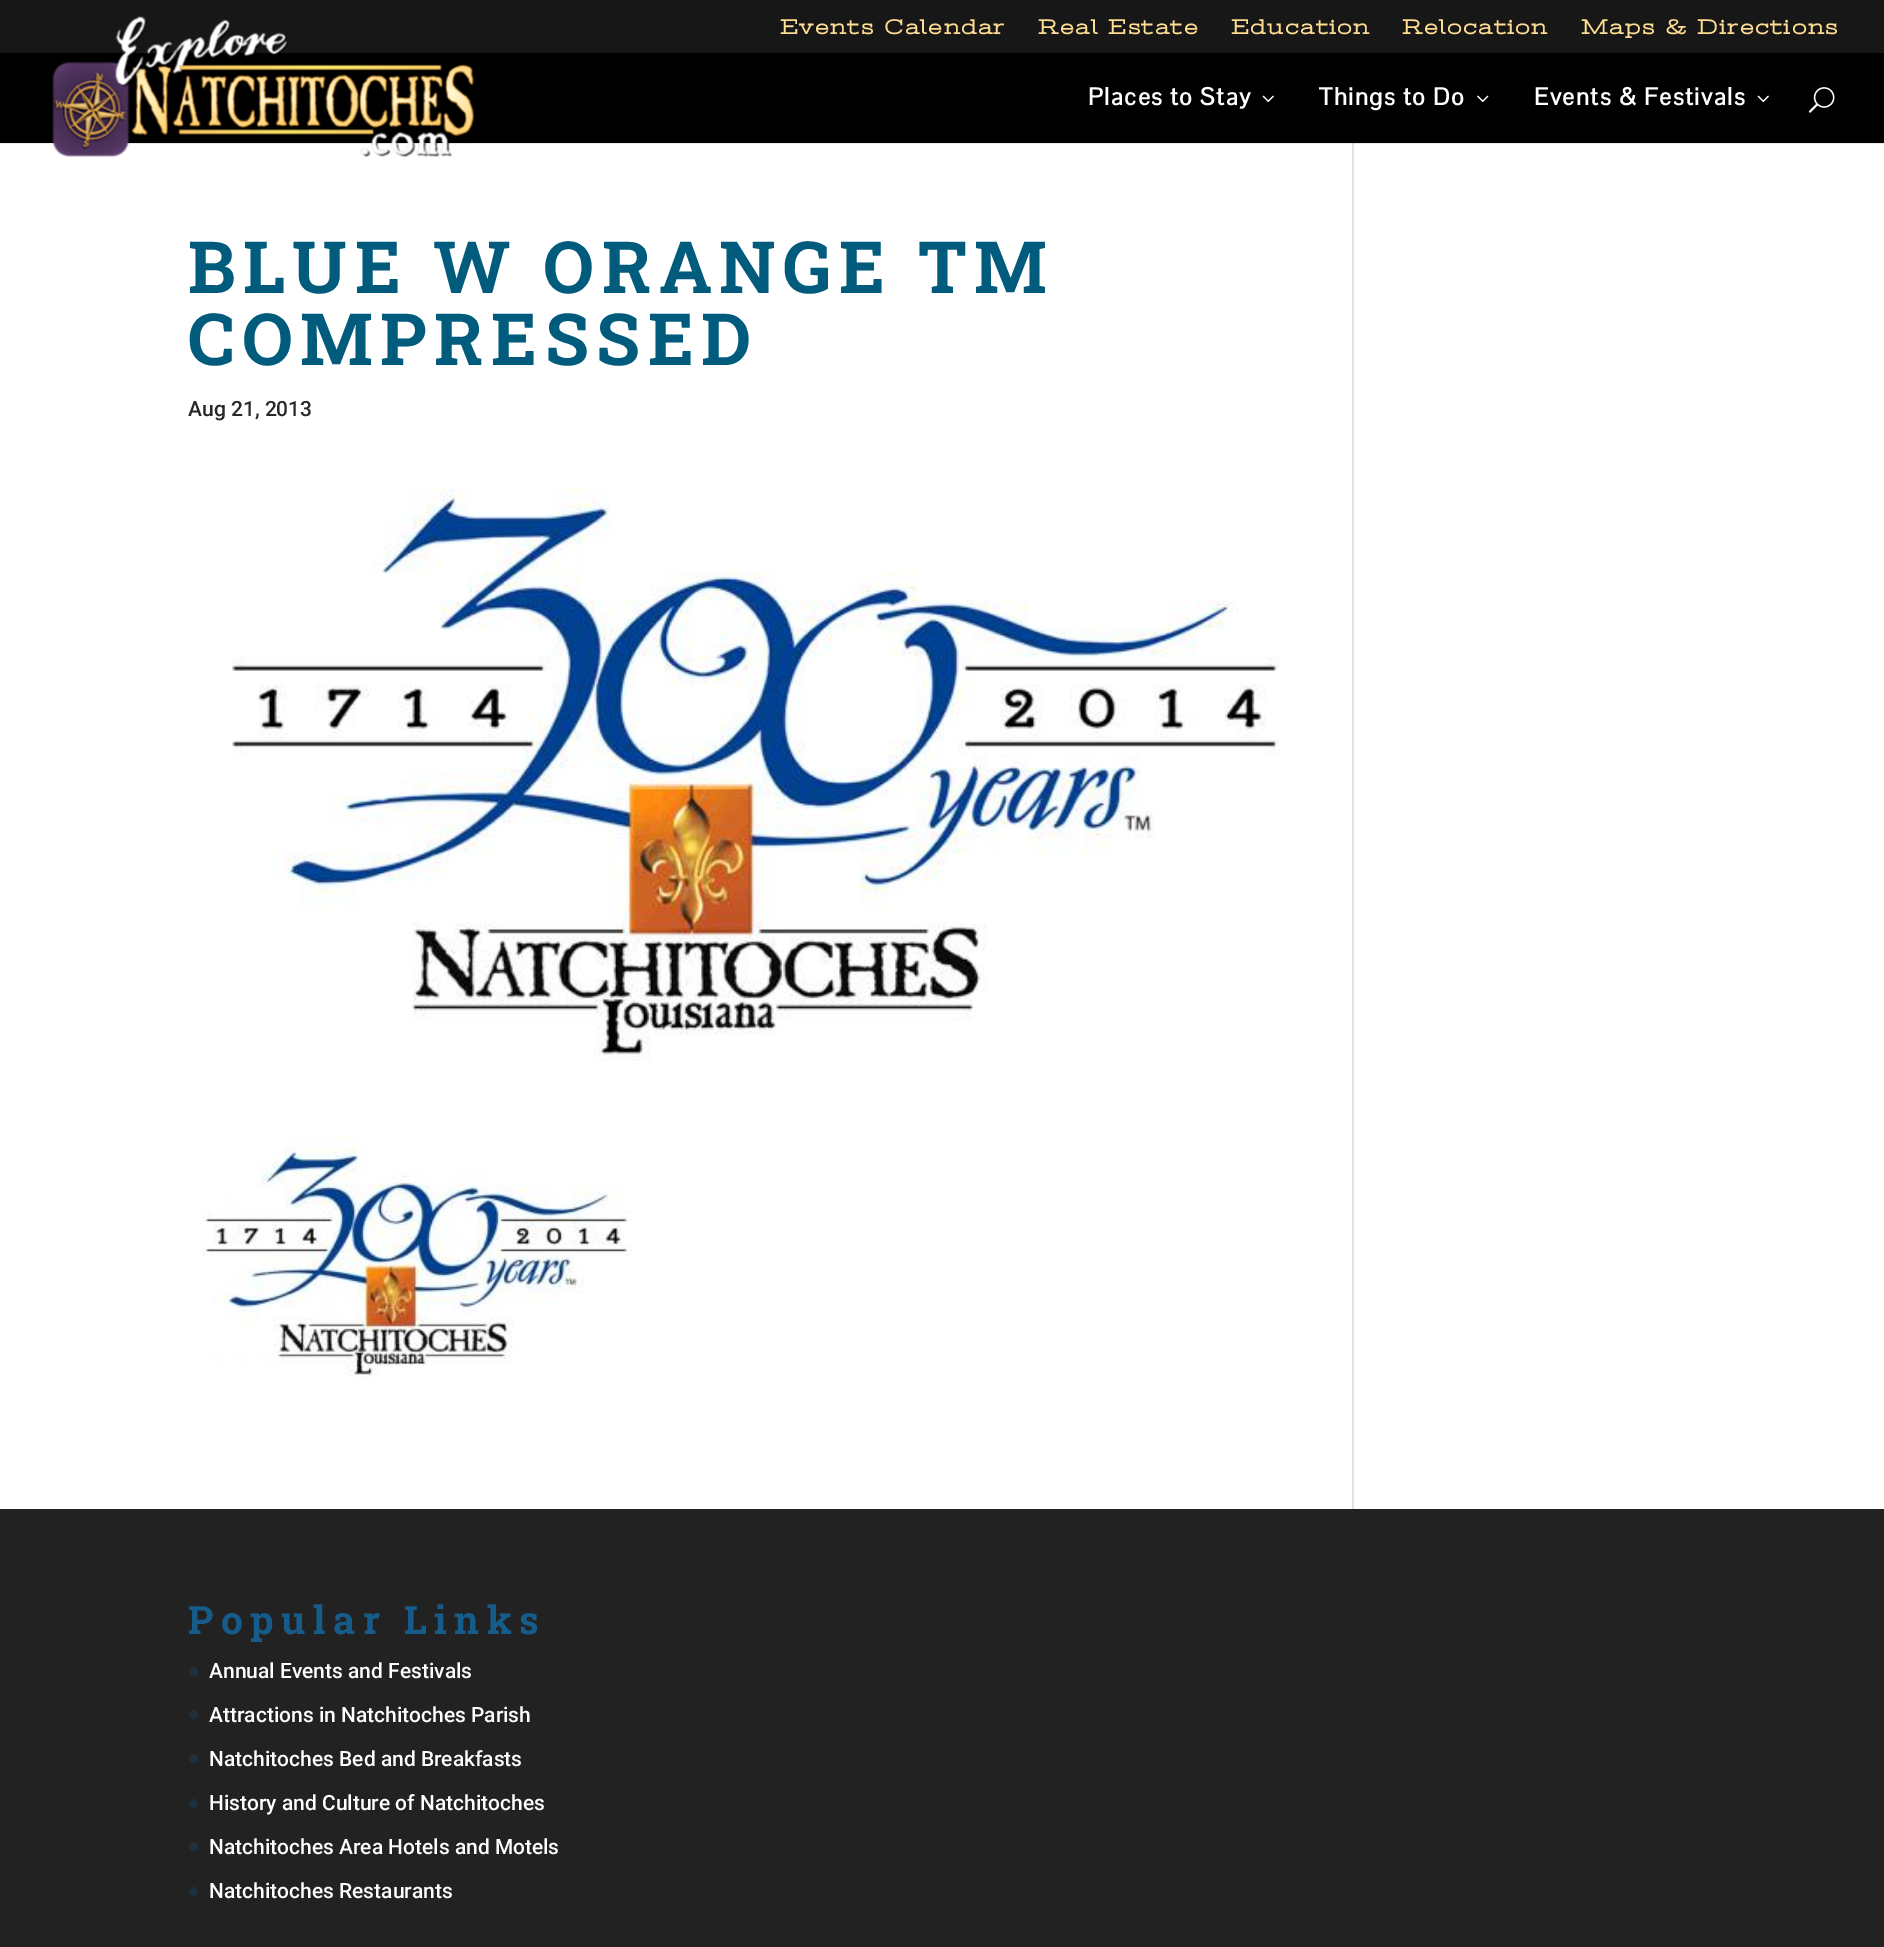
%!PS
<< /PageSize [1884 1947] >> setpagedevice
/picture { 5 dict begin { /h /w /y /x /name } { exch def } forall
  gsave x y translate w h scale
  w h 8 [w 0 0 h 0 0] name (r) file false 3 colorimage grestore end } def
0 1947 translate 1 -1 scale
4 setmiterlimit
0.09 setgray
0 0 1884 1947 rectfill
/StintUltraExpanded-Bold [21 0 0 -21 0 0] selectfont
1 0.867 0.573 setrgbcolor
780 34 moveto 1.5 0 (Events Calendar) ashow
1038 34 moveto 1.5 0 (Real Estate) ashow
1231 34 moveto 1.5 0 (Education) ashow
1402 34 moveto 1.5 0 (Relocation) ashow
1581 34 moveto 1.5 0 (Maps & Directions) ashow
0 setgray
0 53 1884 90 rectfill
1 setgray
0 144 1884 1365 rectfill
0.902 setgray
0 143 1884 1 rectfill
(img1.rgb) 52 16 423 141 picture
/PontanoSans-Bold [24 0 0 -24 0 0] selectfont
1 setgray
1088 105 moveto 1.5 0 (Places to Stay) ashow
(img2.rgb) 1262 95 12 7 picture
1319 105 moveto 1.5 0 (Things to Do) ashow
(img3.rgb) 1477 95 12 7 picture
1534 105 moveto 1.5 0 (Events & Festivals) ashow
(img2.rgb) 1757 95 12 7 picture
(img4.rgb) 1808 87 27 26 picture
/RobotoSlab-Bold [72 0 0 -72 0 0] selectfont
0 0.357 0.486 setrgbcolor
188 293 moveto 7.5 0 (BLUE W ORANGE TM) ashow
188 365 moveto 7.5 0 (COMPRESSED) ashow
/Roboto-Medium [21 0 0 -21 0 0] selectfont
0.157 setgray
188 416 moveto (Aug 21, 2013) show
(img5.rgb) 231 487 1049 575 picture
(img6.rgb) 201 1137 432 240 picture
0.886 setgray
1352 143 2 1366 rectfill
0.796 setgray
1352 143 2 1 rectfill
0.133 setgray
0 1509 1884 438 rectfill
/RobotoSlab-Bold [39 0 0 -39 0 0] selectfont
0.086 0.357 0.537 setrgbcolor
188 1634 moveto 7.5 0 (Popular Links) ashow
0.122 0.188 0.235 setrgbcolor
newpath 193.5 1671.5 4.5 0 360 arc closepath fill
/Roboto-Medium [21 0 0 -21 0 0] selectfont
1 setgray
209 1678 moveto (Annual Events and Festivals) show
0.122 0.188 0.235 setrgbcolor
newpath 193.5 1714.5 4.5 0 360 arc closepath fill
1 setgray
209 1722 moveto (Attractions in Natchitoches Parish) show
0.122 0.188 0.235 setrgbcolor
newpath 193.5 1758.5 4.5 0 360 arc closepath fill
1 setgray
209 1766 moveto (Natchitoches Bed and Breakfasts) show
0.122 0.188 0.235 setrgbcolor
newpath 193.5 1803.5 4.5 0 360 arc closepath fill
1 setgray
209 1810 moveto (History and Culture of Natchitoches) show
0.122 0.188 0.235 setrgbcolor
newpath 193.5 1846.5 4.5 0 360 arc closepath fill
1 setgray
209 1854 moveto (Natchitoches Area Hotels and Motels) show
0.122 0.188 0.235 setrgbcolor
newpath 193.5 1891.5 4.5 0 360 arc closepath fill
1 setgray
209 1898 moveto (Natchitoches Restaurants) show
showpage
